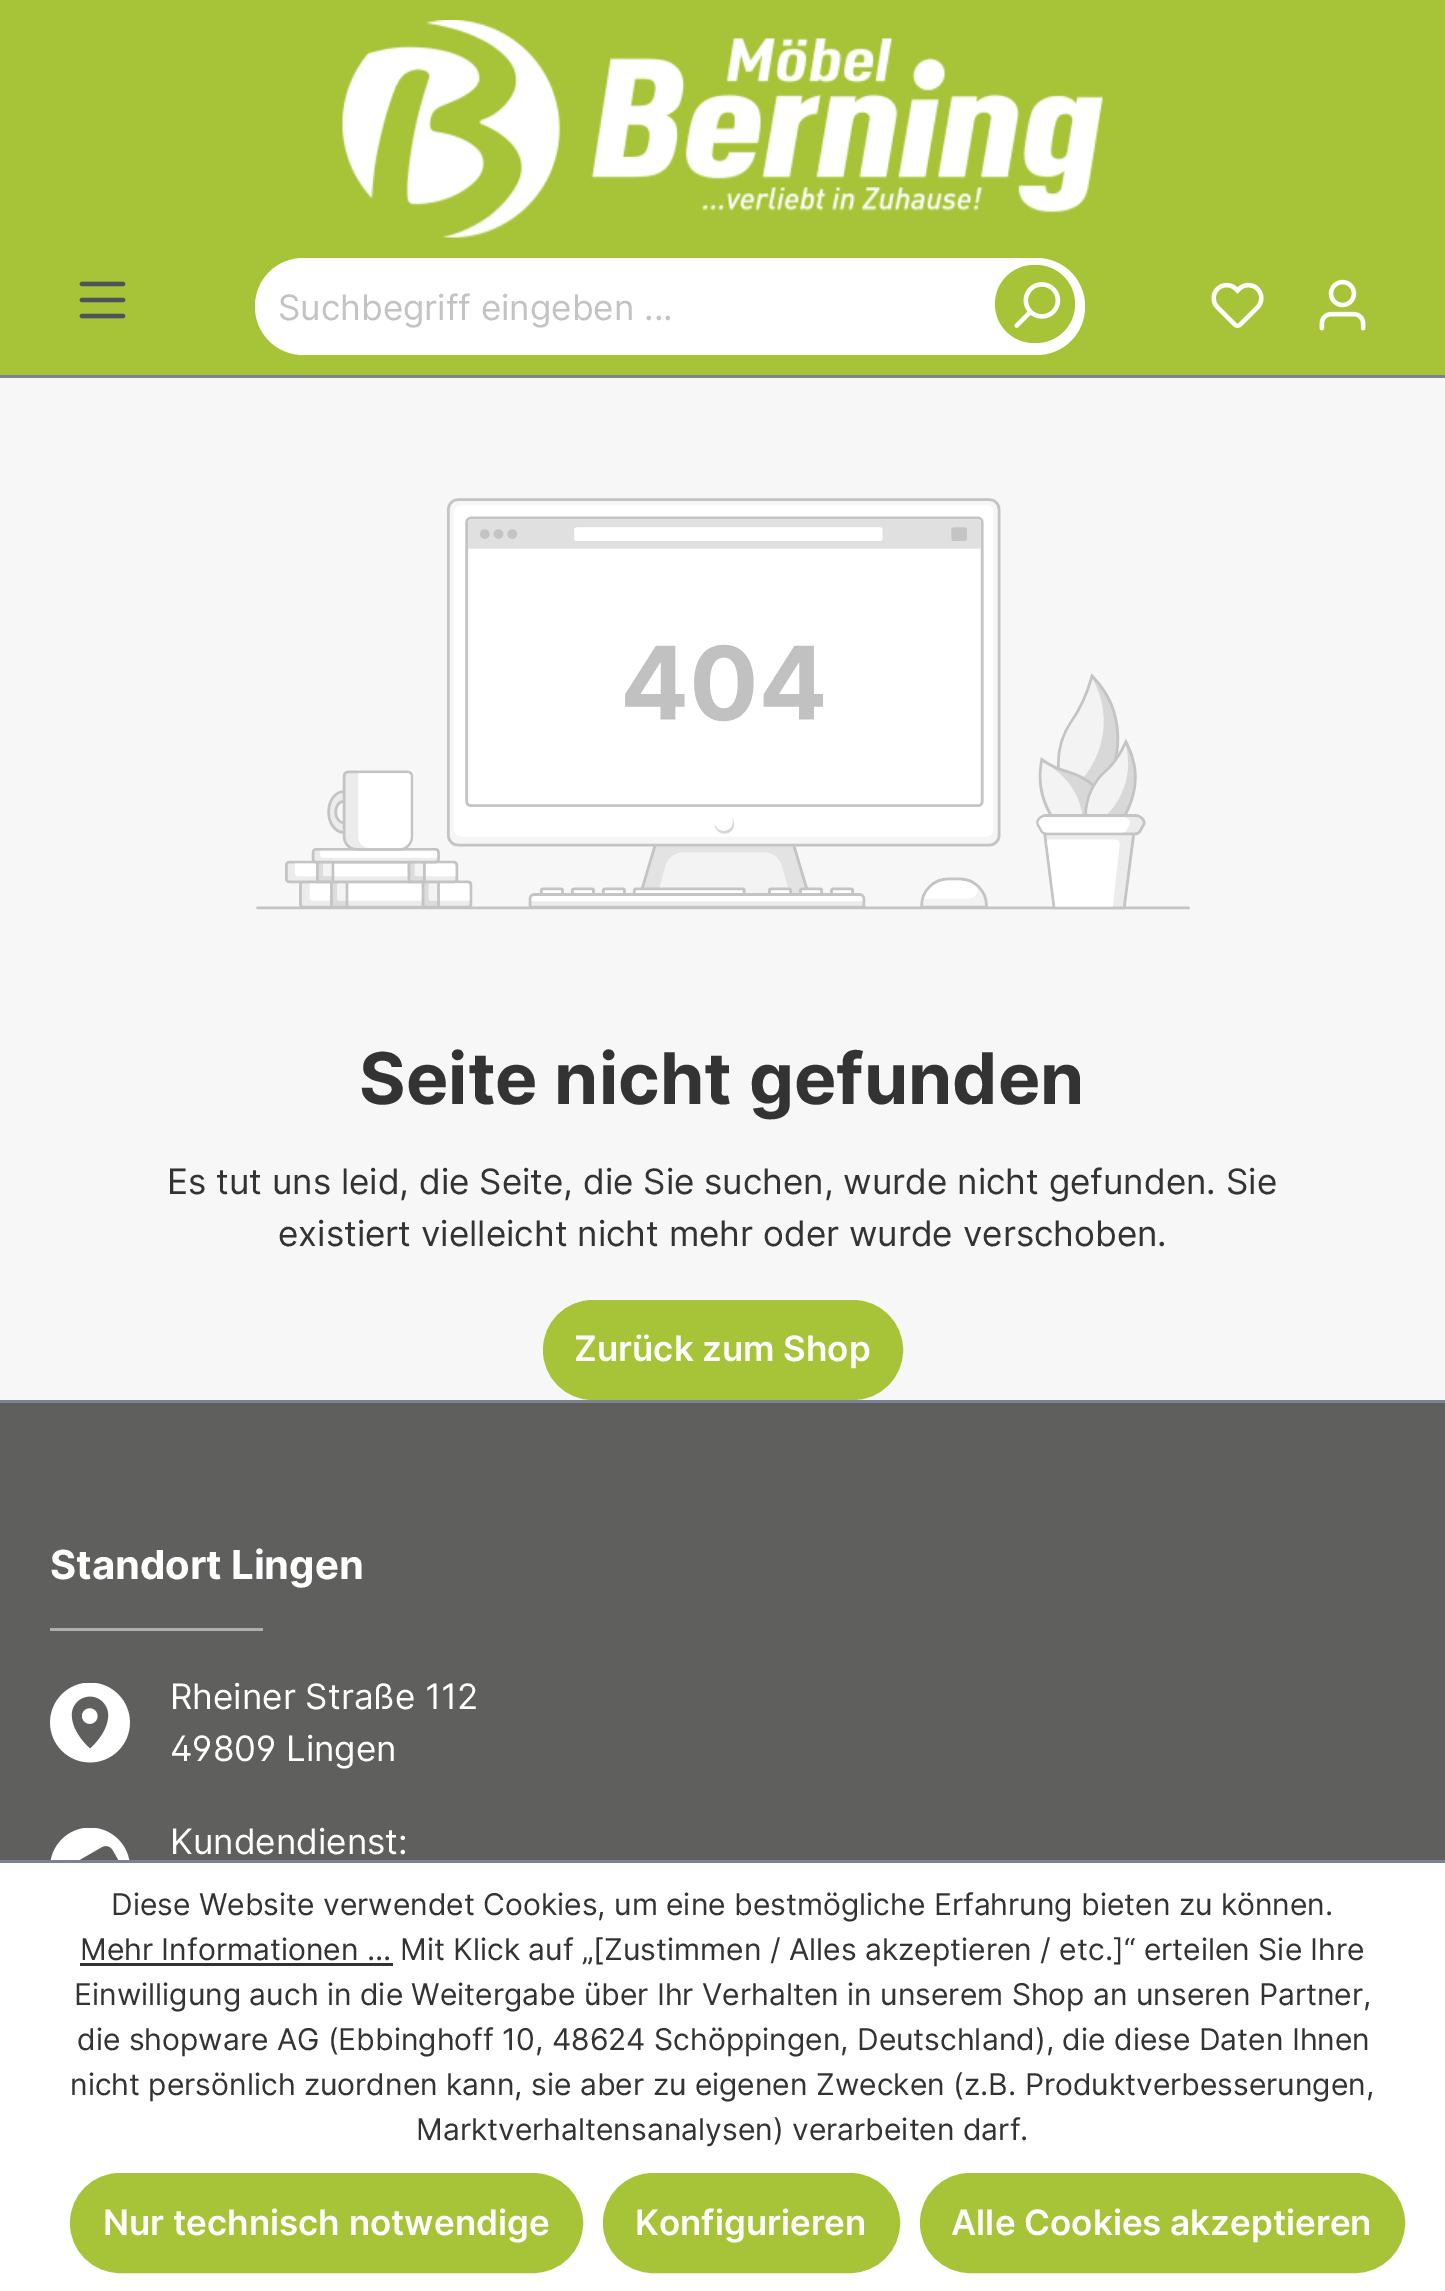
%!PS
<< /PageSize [1445 2291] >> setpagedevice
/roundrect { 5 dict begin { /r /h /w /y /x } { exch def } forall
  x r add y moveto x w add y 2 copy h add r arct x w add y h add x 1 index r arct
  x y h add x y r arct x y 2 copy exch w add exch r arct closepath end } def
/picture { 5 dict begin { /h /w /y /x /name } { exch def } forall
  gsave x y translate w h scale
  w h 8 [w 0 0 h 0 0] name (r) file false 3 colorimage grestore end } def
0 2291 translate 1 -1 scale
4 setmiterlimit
0.969 setgray
0 0 1445 2291 rectfill
0.655 0.769 0.22 setrgbcolor
0 0 1445 375 rectfill
0.475 0.518 0.565 setrgbcolor
0 375 1445 3 rectfill
(img1.rgb) 342 20 761 218 picture
(img2.rgb) 79 281 47 38 picture
1 setgray
newpath 303.5 258 moveto 968 258 lineto 968 355 lineto 303.5 355 lineto 276.5 355 255 333.5 255 306.5 curveto 255 279.5 276.5 258 303.5 258 curveto closepath fill
/Inter-Regular [35 0 0 -35 0 0] selectfont
0.765 setgray
278 320 moveto (Suchbegriff eingeben ...) show
1 setgray
newpath 965 258 moveto 1036.5 258 lineto 1063.5 258 1085 279.5 1085 306.5 curveto 1085 333.5 1063.5 355 1036.5 355 curveto 965 355 lineto closepath fill
0.655 0.769 0.22 setrgbcolor
995 265 80 78 39 roundrect fill
(img3.rgb) 1014 282 47 46 picture
(img4.rgb) 1211 282 53 46 picture
(img5.rgb) 1319 279 47 52 picture
(img6.rgb) 256 498 934 412 picture
/Inter-Bold [71.25 0 0 -71.25 0 0] selectfont
0.2 setgray
359 1104 moveto (Seite nicht gefunden) show
/Inter-Regular [35 0 0 -35 0 0] selectfont
167 1194 moveto (Es tut uns leid, die Seite, die Sie suchen, wurde nicht gefunden. Sie) show
278 1246 moveto (existiert vielleicht nicht mehr oder wurde verschoben.) show
0.655 0.769 0.22 setrgbcolor
544.5 1301.5 357 97 48.5 roundrect gsave fill grestore
3 setlinewidth
stroke
/Inter-SemiBold [35 0 0 -35 0 0] selectfont
1 setgray
574 1361 moveto (Zurück zum Shop) show
0.373 0.373 0.369 setrgbcolor
0 1403 1445 457 rectfill
0.475 0.518 0.565 setrgbcolor
0 1400 1445 3 rectfill
/Inter-Bold [40 0 0 -40 0 0] selectfont
1 setgray
50 1579 moveto (Standort Lingen) show
0.686 setgray
50 1628 213 3 rectfill
(img7.rgb) 50 1683 80 80 picture
/Inter-Regular [35 0 0 -35 0 0] selectfont
1 setgray
170 1709 moveto (Rheiner Straße 112) show
/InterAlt-Regular [35 0 0 -35 0 0] selectfont
170 1761 moveto (49809 Lingen) show
(img8.rgb) 50 1828 80 32 picture
/Inter-Regular [35 0 0 -35 0 0] selectfont
170 1854 moveto (Kundendienst:) show
0 1863 1445 428 rectfill
0.475 0.518 0.565 setrgbcolor
0 1860 1445 3 rectfill
/Inter-Regular [30 0 0 -30 0 0] selectfont
0.2 setgray
111 1915 moveto (Diese Website verwendet Cookies, um eine bestmögliche Erfahrung bieten zu können.) show
80 1963 313 3 rectfill
80 1960 moveto (Mehr Informationen ... Mit Klick auf „[Zustimmen / Alles akzeptieren / etc.]“ erteilen Sie Ihre) show
74 2005 moveto (Einwilligung auch in die Weitergabe über Ihr Verhalten in unserem Shop an unseren Partner,) show
77 2050 moveto (die shopware AG \(Ebbinghoff 10, 48624 Schöppingen, Deutschland\), die diese Daten Ihnen) show
70 2095 moveto (nicht persönlich zuordnen kann, sie aber zu eigenen Zwecken \(z.B. Produktverbesserungen,) show
416 2140 moveto (Marktverhaltensanalysen\) verarbeiten darf.) show
0.655 0.769 0.22 setrgbcolor
71.5 2174.5 510 97 48.5 roundrect gsave fill grestore
stroke
/Inter-SemiBold [35 0 0 -35 0 0] selectfont
1 setgray
103 2235 moveto (Nur technisch notwendige) show
0.655 0.769 0.22 setrgbcolor
604.5 2174.5 294 97 48.5 roundrect gsave fill grestore
stroke
1 setgray
635 2235 moveto (Konfigurieren) show
0.655 0.769 0.22 setrgbcolor
921.5 2174.5 482 97 48.5 roundrect gsave fill grestore
stroke
1 setgray
951 2235 moveto (Alle Cookies akzeptieren) show
showpage
